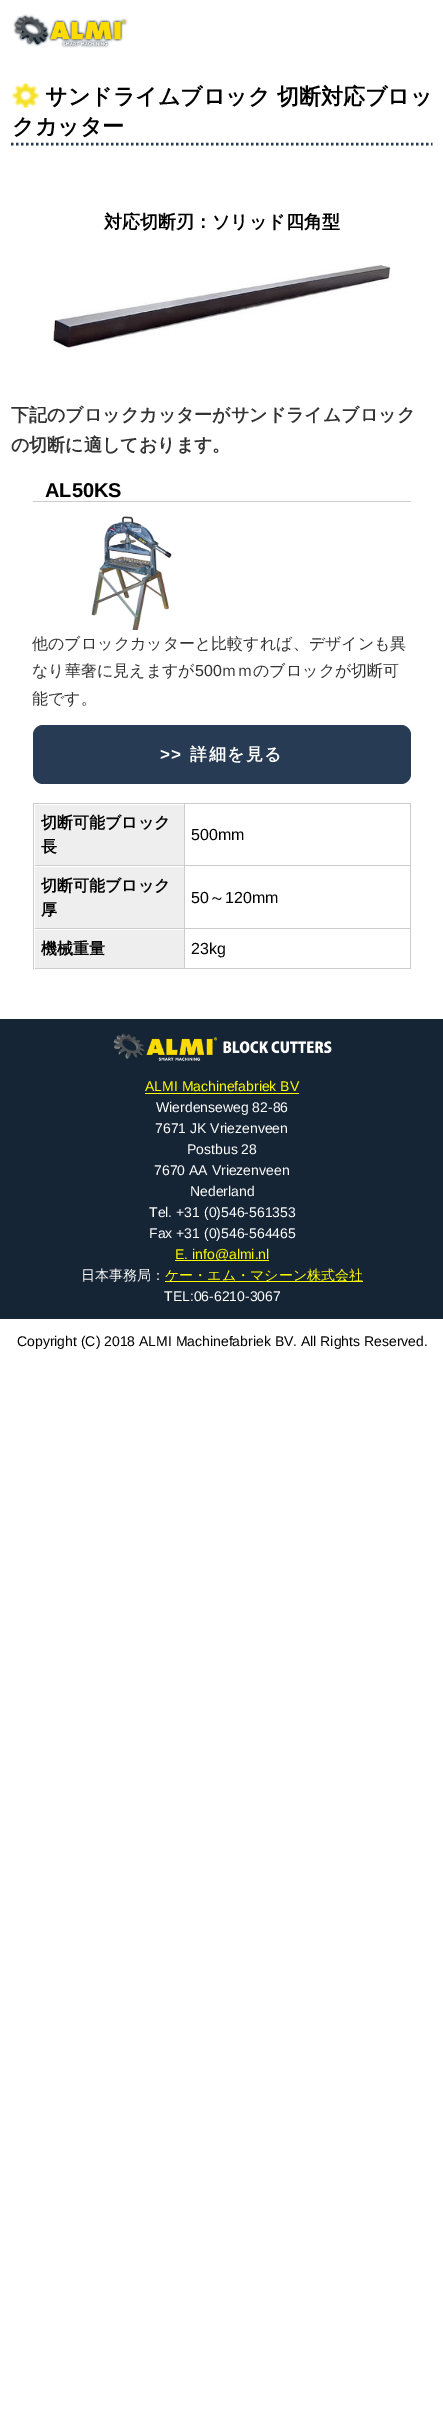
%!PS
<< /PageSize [443 2410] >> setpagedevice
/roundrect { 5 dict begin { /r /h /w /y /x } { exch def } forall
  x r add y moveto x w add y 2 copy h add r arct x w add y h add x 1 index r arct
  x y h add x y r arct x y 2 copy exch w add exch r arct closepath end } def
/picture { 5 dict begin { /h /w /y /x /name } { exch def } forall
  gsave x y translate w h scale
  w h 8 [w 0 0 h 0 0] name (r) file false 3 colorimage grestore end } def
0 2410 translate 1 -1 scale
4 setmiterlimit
1 setgray
0 0 443 2410 rectfill
(img1.rgb) 13 14 115 34 picture
0.153 0.235 0.329 setrgbcolor
2.5 setlinewidth
[2.5 2.5] 0 setdash
newpath 11 144 moveto 432.5 144 lineto stroke
(img2.rgb) 12 83 27 25 picture
/WenQuanYiZenHei-Bold [22 0 0 -22 0 0] selectfont
0 setgray
45 104 moveto (サンドライムブロック 切断対応ブロッ) show
12 134 moveto (クカッター) show
/WenQuanYiZenHei-Bold [18 0 0 -18 0 0] selectfont
104 228 moveto (対応切断刃：ソリッド四角型) show
(img3.rgb) 53 265 338 84 picture
0.2 setgray
11 421 moveto (下記のブロックカッターがサンドライムブロック) show
11 451 moveto (の切断に適しております。) show
0.8 setgray
33 501 378 1 rectfill
/LiberationSans-Bold [20 0 0 -20 0 0] selectfont
0 setgray
45 497 moveto (AL50KS) show
(img4.rgb) 91 516 81 114 picture
/WenQuanYiZenHei-Medium [16 0 0 -16 0 0] selectfont
0.2 setgray
32 649 moveto (他のブロックカッターと比較すれば、デザインも異) show
32 676 moveto (なり華奢に見えますが) show
/LiberationSans-Regular [16 0 0 -16 0 0] selectfont
195 676 moveto (500) show
/WenQuanYiZenHei-Medium [16 0 0 -16 0 0] selectfont
221 676 moveto (ｍｍのブロックが切断可) show
32 704 moveto (能です。) show
0.153 0.235 0.329 setrgbcolor
33 725 378 59 10 roundrect fill
/LiberationSans-Bold [17 0 0 -17 0 0] selectfont
1 setgray
160 760 moveto 1.5 0 (>>) ashow
/WenQuanYiZenHei-Bold [17 0 0 -17 0 0] selectfont
190 760 moveto 1.5 0 (詳細を見る) ashow
0.8 setgray
33 803 378 1 rectfill
33 803 1 166 rectfill
0.933 setgray
35 805 149 60 rectfill
0.8 setgray
184 804 1 165 rectfill
34 865 151 1 rectfill
1 setgray
34 865 1 1 rectfill
/WenQuanYiZenHei-Bold [16 0 0 -16 0 0] selectfont
0 setgray
41 828 moveto (切断可能ブロック) show
41 852 moveto (長) show
0.8 setgray
410 804 1 165 rectfill
185 865 226 1 rectfill
/LiberationSans-Regular [16 0 0 -16 0 0] selectfont
0 setgray
191 840 moveto (500mm) show
0.933 setgray
35 867 149 61 rectfill
0.8 setgray
34 928 377 1 rectfill
1 setgray
34 928 1 1 rectfill
/WenQuanYiZenHei-Bold [16 0 0 -16 0 0] selectfont
0 setgray
41 891 moveto (切断可能ブロック) show
41 915 moveto (厚) show
/LiberationSans-Regular [16 0 0 -16 0 0] selectfont
191 903 moveto (50) show
/WenQuanYiZenHei-Medium [16 0 0 -16 0 0] selectfont
209 903 moveto (～) show
/LiberationSans-Regular [16 0 0 -16 0 0] selectfont
225 903 moveto (120mm) show
0.933 setgray
35 930 149 38 rectfill
0.8 setgray
34 968 377 1 rectfill
1 setgray
34 968 1 1 rectfill
/WenQuanYiZenHei-Bold [16 0 0 -16 0 0] selectfont
0 setgray
41 954 moveto (機械重量) show
/LiberationSans-Regular [16 0 0 -16 0 0] selectfont
191 954 moveto (23kg) show
0.086 0.145 0.208 setrgbcolor
0 1019 443 300 rectfill
(img5.rgb) 113 1033 219 28 picture
/LiberationSans-Regular [14 0 0 -14 0 0] selectfont
1 1 0 setrgbcolor
145 1091 moveto (ALMI Machinefabriek BV) show
145 1093 154 1 rectfill
1 setgray
156 1112 moveto (Wierdenseweg 82-86) show
155 1133 moveto (7671 JK Vriezenveen) show
187 1154 moveto (Postbus 28) show
154 1175 moveto (7670 AA Vriezenveen) show
190 1196 moveto (Nederland) show
149 1217 moveto (Tel. +31 \(0\)546-561353) show
149 1238 moveto (Fax +31 \(0\)546-564465) show
1 1 0 setrgbcolor
175 1260 94 1 rectfill
175 1259 moveto (E. info@almi.nl) show
/WenQuanYiZenHei-Medium [14 0 0 -14 0 0] selectfont
1 setgray
81 1280 moveto (日本事務局：) show
1 1 0 setrgbcolor
165 1281 198 1 rectfill
165 1280 moveto (ケー・エム・マシーン株式会社) show
/LiberationSans-Regular [14 0 0 -14 0 0] selectfont
1 setgray
164 1301 moveto (TEL:06-6210-3067) show
0 setgray
17 1346 moveto (Copyright \(C\) 2018 ALMI Machinefabriek BV. All Rights Reserved.) show
showpage
